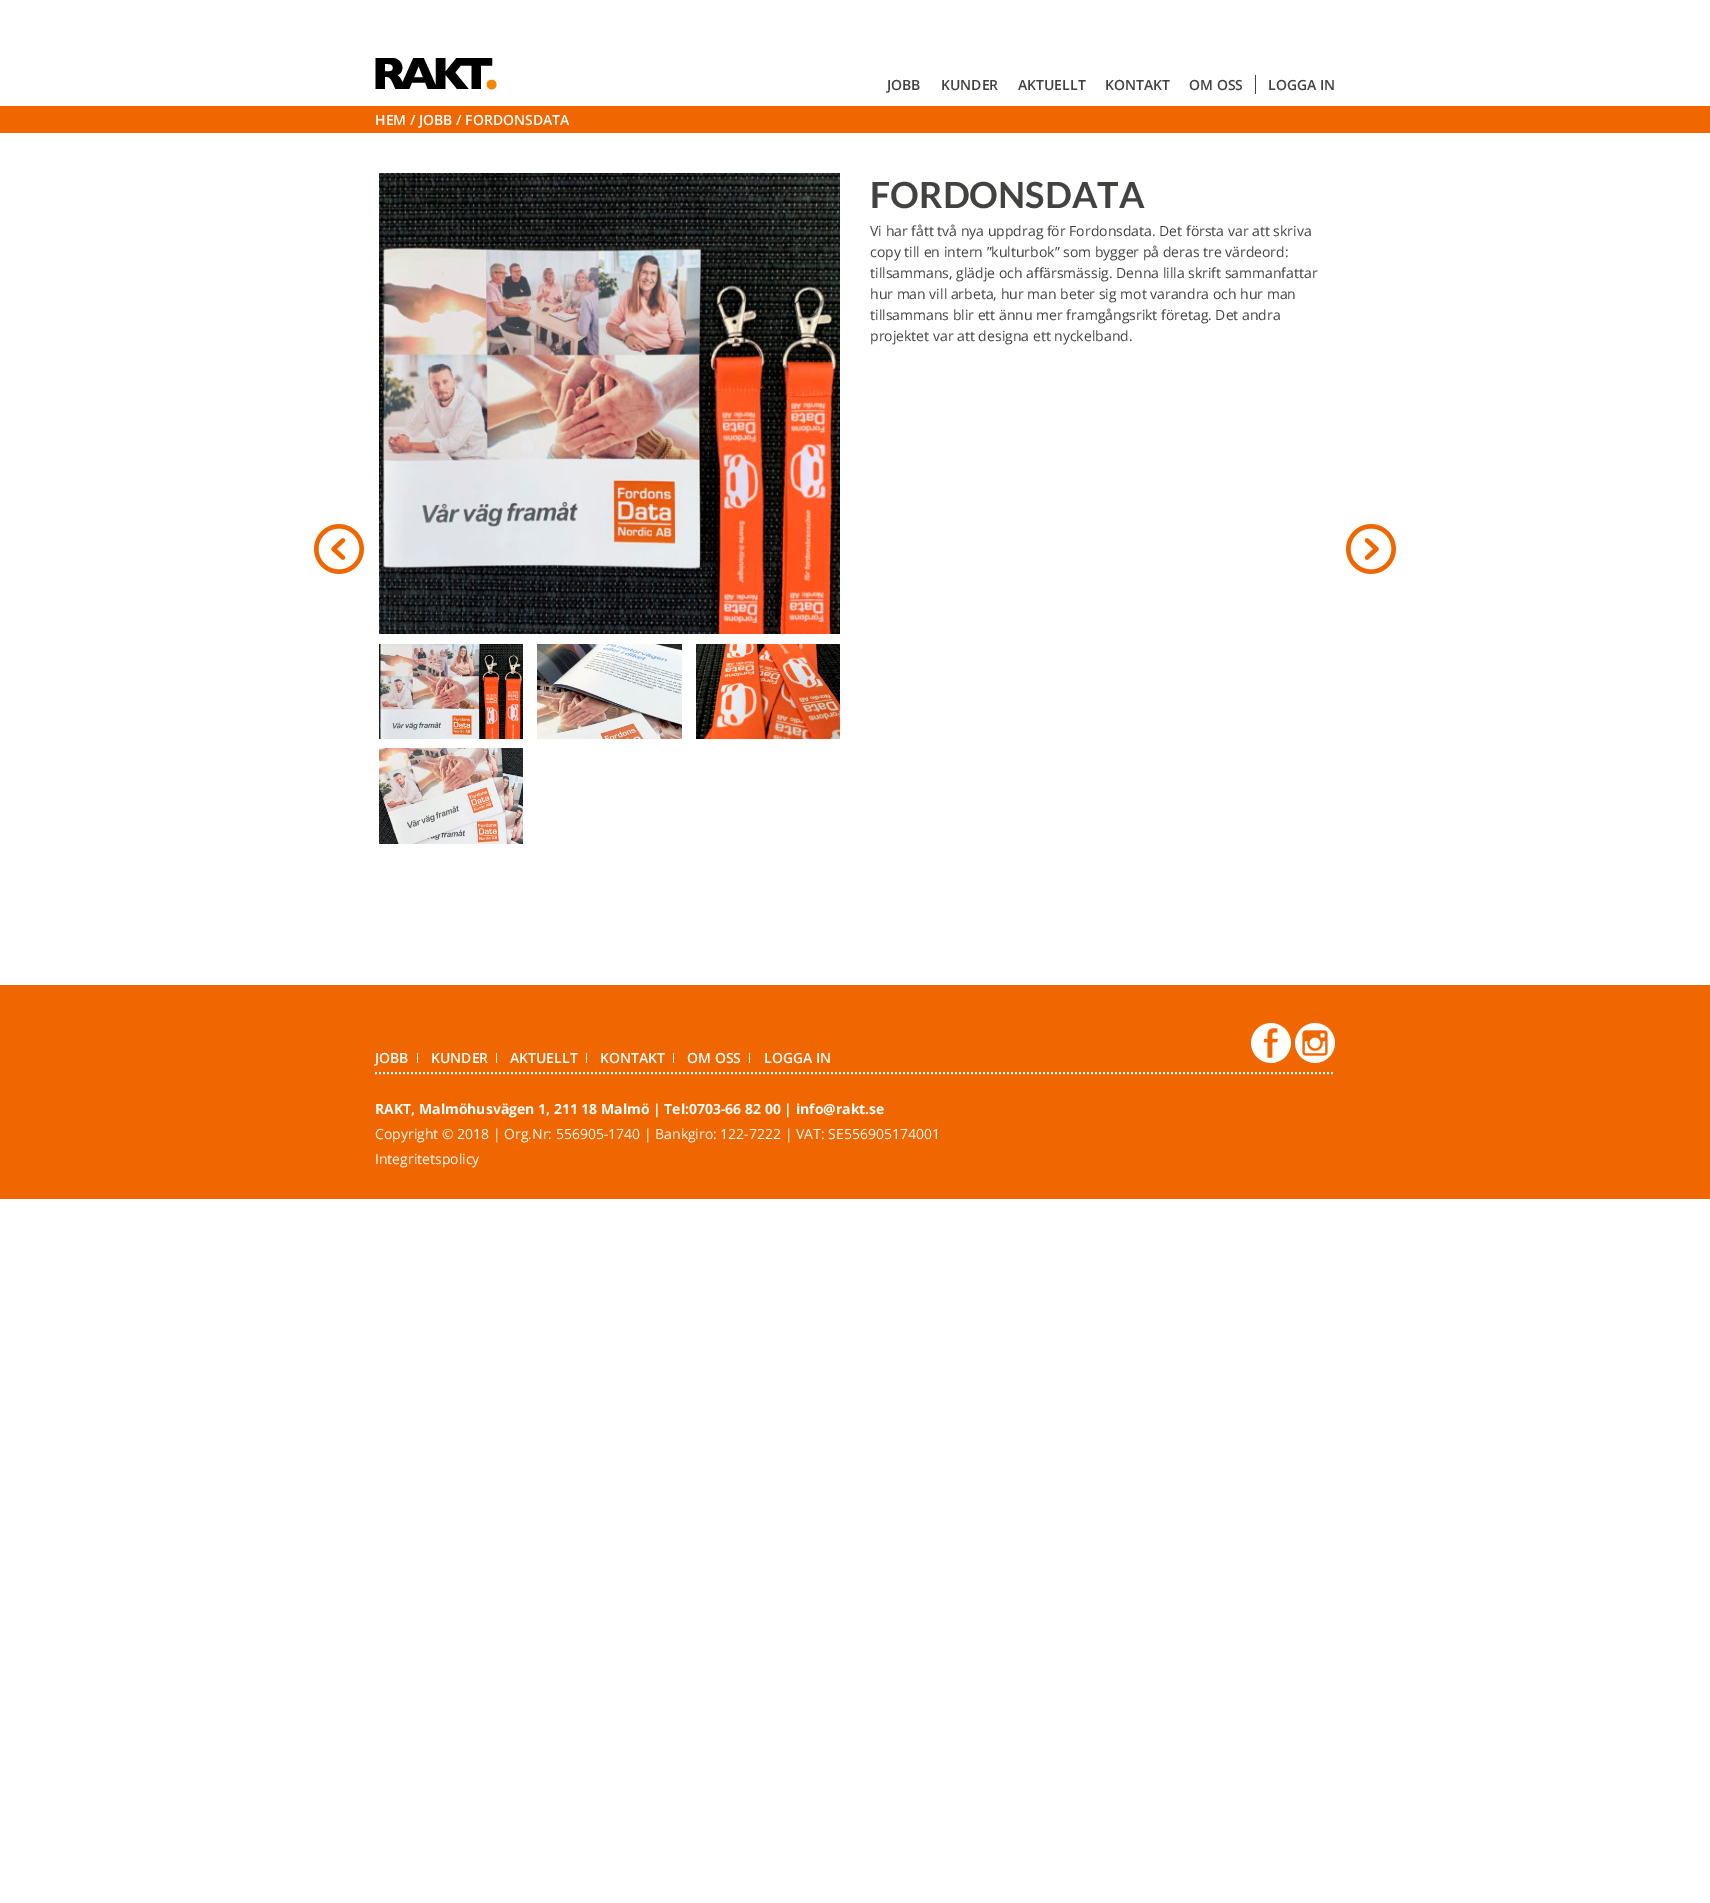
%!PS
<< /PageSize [1710 1903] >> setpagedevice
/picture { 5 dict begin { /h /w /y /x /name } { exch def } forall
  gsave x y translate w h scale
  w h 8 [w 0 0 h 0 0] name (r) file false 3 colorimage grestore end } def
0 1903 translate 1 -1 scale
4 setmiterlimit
1 setgray
0 0 1710 1903 rectfill
(img1.rgb) 375 58 122 32 picture
/OpenSans-SemiBold [14 0 0 -14 0 0] selectfont
0.263 0.259 0.255 setrgbcolor
887 90 moveto (JOBB) show
941 90 moveto (KUNDER) show
1018 90 moveto (AKTUELLT) show
1105 90 moveto (KONTAKT) show
1189 90 moveto (OM OSS) show
1268 90 moveto (LOGGA IN) show
1255 75 1 19 rectfill
0.941 0.4 0 setrgbcolor
0 106 1710 27 rectfill
1 setgray
375 125 moveto (HEM / JOBB / FORDONSDATA) show
(img2.rgb) 379 173 461 461 picture
(img3.rgb) 379 644 144 95 picture
(img4.rgb) 537 644 145 95 picture
(img5.rgb) 696 644 144 95 picture
(img6.rgb) 379 748 144 96 picture
/Lato-Bold [36 0 0 -36 0 0] selectfont
0.263 0.259 0.255 setrgbcolor
870 208 moveto (FORDONSDATA) show
/OpenSans-Regular [14 0 0 -14 0 0] selectfont
870 236 moveto (Vi har fått två nya uppdrag för Fordonsdata. Det första var att skriva) show
870 257 moveto (copy till en intern ”kulturbok” som bygger på deras tre värdeord:) show
870 278 moveto (tillsammans, glädje och affärsmässig. Denna lilla skrift sammanfattar) show
870 299 moveto (hur man vill arbeta, hur man beter sig mot varandra och hur man) show
870 320 moveto (tillsammans blir ett ännu mer framgångsrikt företag. Det andra) show
870 341 moveto (projektet var att designa ett nyckelband.) show
(img7.rgb) 314 524 50 50 picture
(img8.rgb) 1346 524 50 50 picture
0.941 0.4 0 setrgbcolor
0 985 1710 214 rectfill
/OpenSans-SemiBold [14 0 0 -14 0 0] selectfont
1 setgray
375 1063 moveto (JOBB) show
417 1053 1 10 rectfill
431 1063 moveto (KUNDER) show
496 1053 1 10 rectfill
510 1063 moveto (AKTUELLT) show
586 1053 1 10 rectfill
600 1063 moveto (KONTAKT) show
673 1053 1 10 rectfill
687 1063 moveto (OM OSS) show
749 1053 1 10 rectfill
764 1063 moveto (LOGGA IN) show
(img9.rgb) 1251 1023 40 40 picture
(img10.rgb) 1295 1023 40 40 picture
2 setlinewidth
[2 2] 0 setdash
newpath 375 1073 moveto 1335 1073 lineto stroke
/OpenSans-Bold [14 0 0 -14 0 0] selectfont
375 1114 moveto (RAKT, Malmöhusvägen 1, 211 18 Malmö | Tel:0703-66 82 00 | info@rakt.se) show
/OpenSans-Regular [14 0 0 -14 0 0] selectfont
375 1139 moveto (Copyright © 2018 | Org.Nr: 556905-1740 | Bankgiro: 122-7222 | VAT: SE556905174001) show
375 1164 moveto (Integritetspolicy) show
showpage
